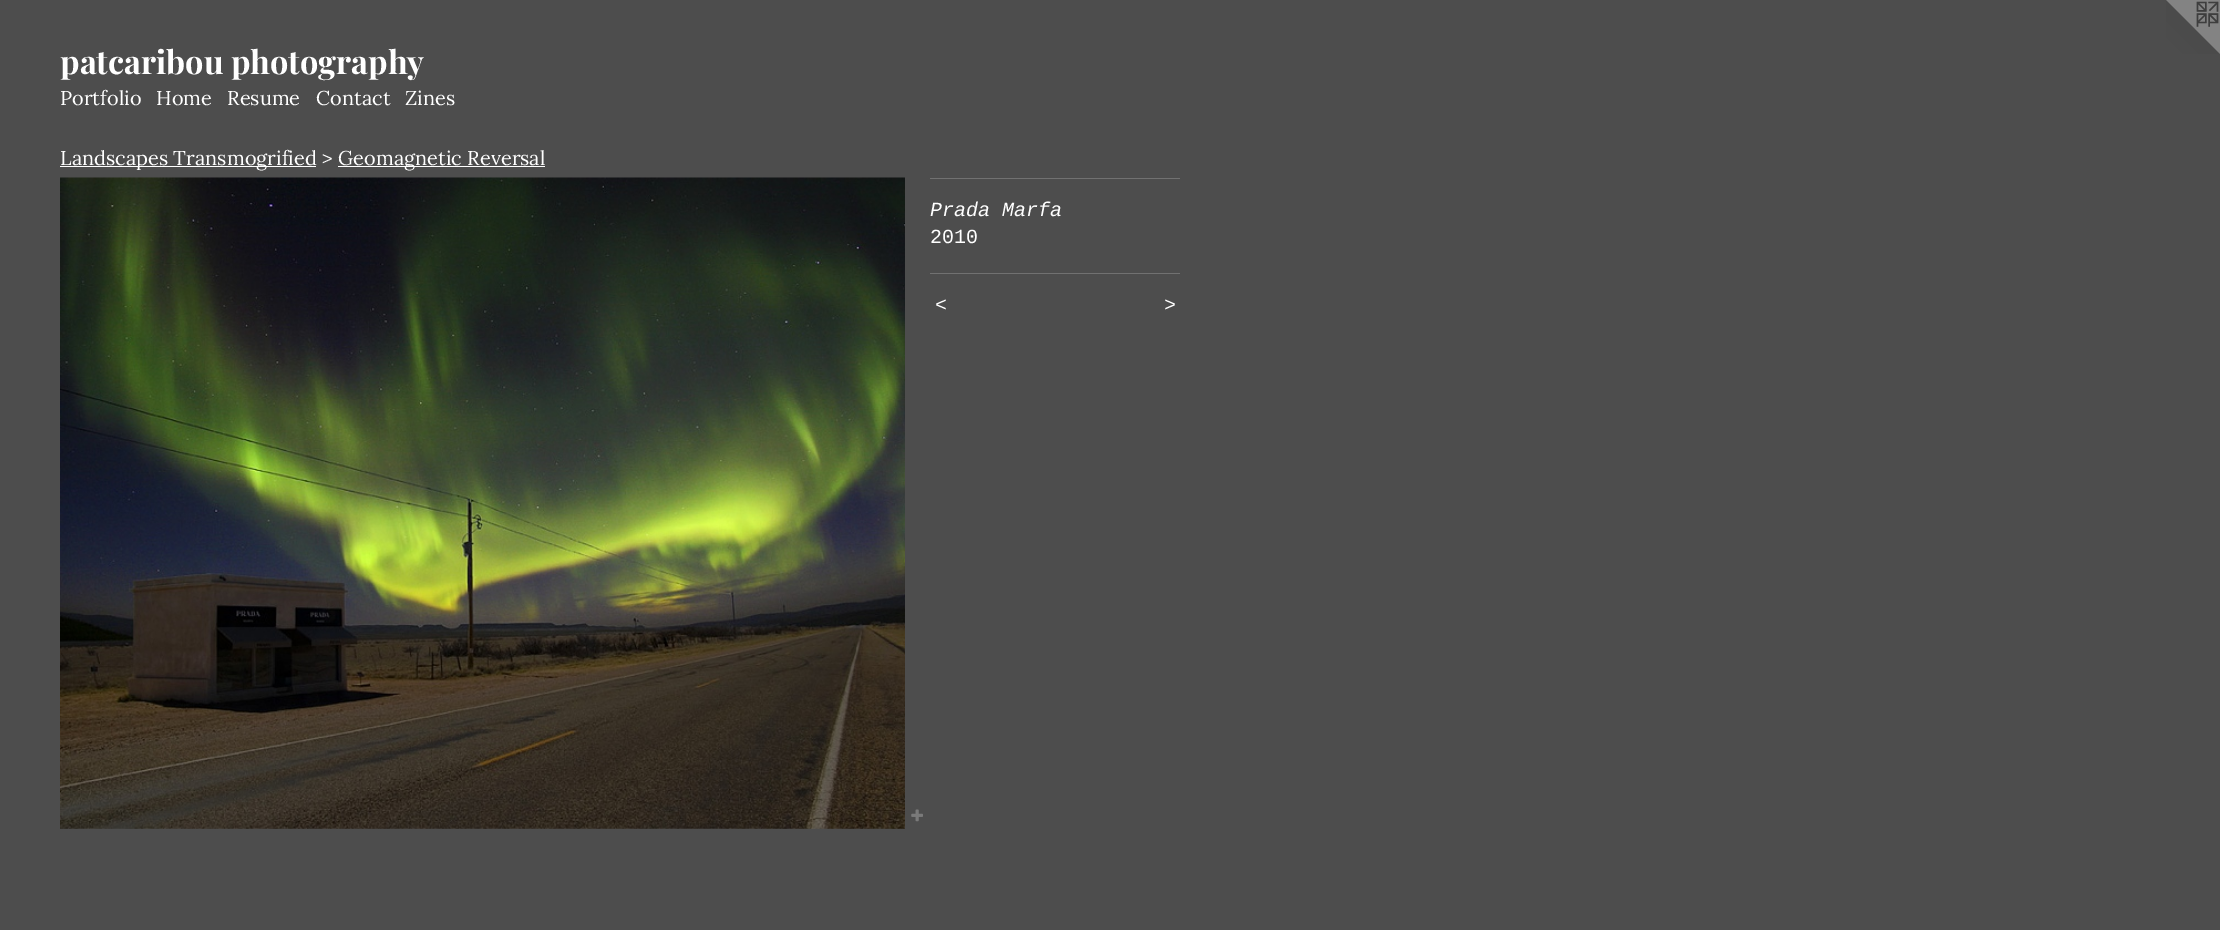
%!PS
<< /PageSize [2220 930] >> setpagedevice
/picture { 5 dict begin { /h /w /y /x /name } { exch def } forall
  gsave x y translate w h scale
  w h 8 [w 0 0 h 0 0] name (r) file false 3 colorimage grestore end } def
0 930 translate 1 -1 scale
4 setmiterlimit
0.302 setgray
0 0 2220 930 rectfill
(img1.rgb) 2166 0 54 54 picture
/PlayfairDisplay-Bold [32.5 0 0 -32.5 0 0] selectfont
1 setgray
60 74 moveto (patcaribou photography) show
/Lora-Regular [20 0 0 -20 0 0] selectfont
60 105 moveto (Portfolio) show
156 105 moveto (Home) show
227 105 moveto (Resume) show
316 105 moveto (Contact) show
405 105 moveto (Zines) show
60 166 256 1 rectfill
60 165 moveto (Landscapes Transmogrified >) show
338 166 207 1 rectfill
338 165 moveto (Geomagnetic Reversal) show
(img2.rgb) 60 177 845 652 picture
(img3.rgb) 911 809 12 13 picture
0.443 setgray
930 178 250 1 rectfill
/LiberationMono-Italic [20 0 0 -20 0 0] selectfont
1 setgray
930 216 moveto (Prada Marfa) show
/LiberationMono-Regular [20 0 0 -20 0 0] selectfont
930 243 moveto (2010) show
0.443 setgray
930 273 250 1 rectfill
/LiberationMono-Italic [20 0 0 -20 0 0] selectfont
1 setgray
935 311 moveto 1 0 (<) ashow
1164 311 moveto 1 0 (>) ashow
showpage
